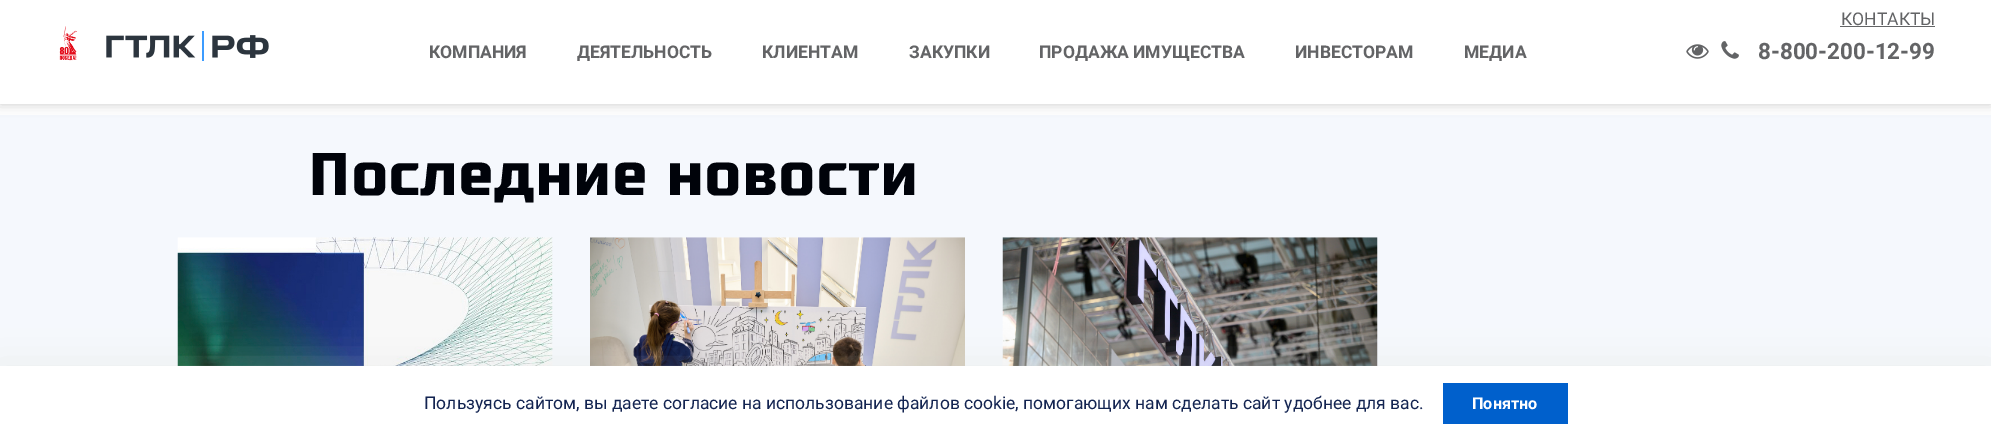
%!PS
<< /PageSize [1991 440] /PageUsesTransparency true >> setpagedevice
/alpha { dup .setfillconstantalpha .setstrokeconstantalpha } def
/roundrect { 5 dict begin { /r /h /w /y /x } { exch def } forall
  x r add y moveto x w add y 2 copy h add r arct x w add y h add x 1 index r arct
  x y h add x y r arct x y 2 copy exch w add exch r arct closepath end } def
/shadow { 12 dict begin { /a /b /q /h /w /y /x } { exch def } forall gsave /was 0 def
  9 -2 -9 { dup b mul 4 div /e exch def 1 sub .425 mul 2.718 exch exp 1 add a .99 .min exch div /now exch def
    1 1 now sub 1 was sub div sub alpha /was now def
    w h .min e 2 mul add 0 gt { x e sub y e sub w e 2 mul add h e 2 mul add
      q e add b .6 mul add w h .min 2 div e add .min 0 .max roundrect fill } if } for grestore end } def
/picture { 5 dict begin { /h /w /y /x /name } { exch def } forall
  gsave x y translate w h scale
  w h 8 [w 0 0 h 0 0] name (r) file false 3 colorimage grestore end } def
0 .pushpdf14devicefilter
0 440 translate 1 -1 scale
4 setmiterlimit
1 setgray
0 0 1991 440 rectfill
0.961 0.973 0.992 setrgbcolor
0 115 1991 251 rectfill
0 setgray
0 0 1991 104 0 6 0.2 shadow
1 setgray
0 0 1991 104 rectfill
(img1.rgb) 59 26 18 35 picture
(img2.rgb) 106 31 163 30 picture
/Roboto-Regular [17.5 0 0 -17.5 0 0] selectfont
0.388 0.392 0.4 setrgbcolor
1841 25 moveto (КОНТАКТЫ) show
1840 26 95 1 rectfill
/Roboto-Bold [17.5 0 0 -17.5 0 0] selectfont
429 58 moveto (КОМПАНИЯ) show
577 58 moveto (ДЕЯТЕЛЬНОСТЬ) show
762 58 moveto (КЛИЕНТАМ) show
909 58 moveto (ЗАКУПКИ) show
1039 58 moveto (ПРОДАЖА ИМУЩЕСТВА) show
1295 58 moveto (ИНВЕСТОРАМ) show
1464 58 moveto (МЕДИА) show
(img3.rgb) 1686 44 23 15 picture
(img4.rgb) 1721 41 18 18 picture
/Roboto-Bold [22.5 0 0 -22.5 0 0] selectfont
1758 59 moveto (8-800-200-12-99) show
/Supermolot-Bold [60 0 0 -60 0 0] selectfont
0 0.012 0.039 setrgbcolor
308 195 moveto (Последние новости) show
(img5.rgb) 177 237 376 129 picture
(img6.rgb) 590 237 375 129 picture
(img7.rgb) 1002 237 376 129 picture
0.812 setgray
-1 370 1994 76 0 19 0.4 shadow
1 setgray
0 366 1991 74 rectfill
/Roboto-Regular [17.5 0 0 -17.5 0 0] selectfont
0.075 0.141 0.318 setrgbcolor
424 409 moveto (Пользуясь сайтом, вы даете согласие на использование файлов cookie, помогающих нам сделать сайт удобнее для вас.) show
0 0.376 0.8 setrgbcolor
1443 383 125 41 rectfill
/Roboto-Bold [16.25 0 0 -16.25 0 0] selectfont
1 setgray
1472 409 moveto (Понятно) show
.poppdf14devicefilter showpage
